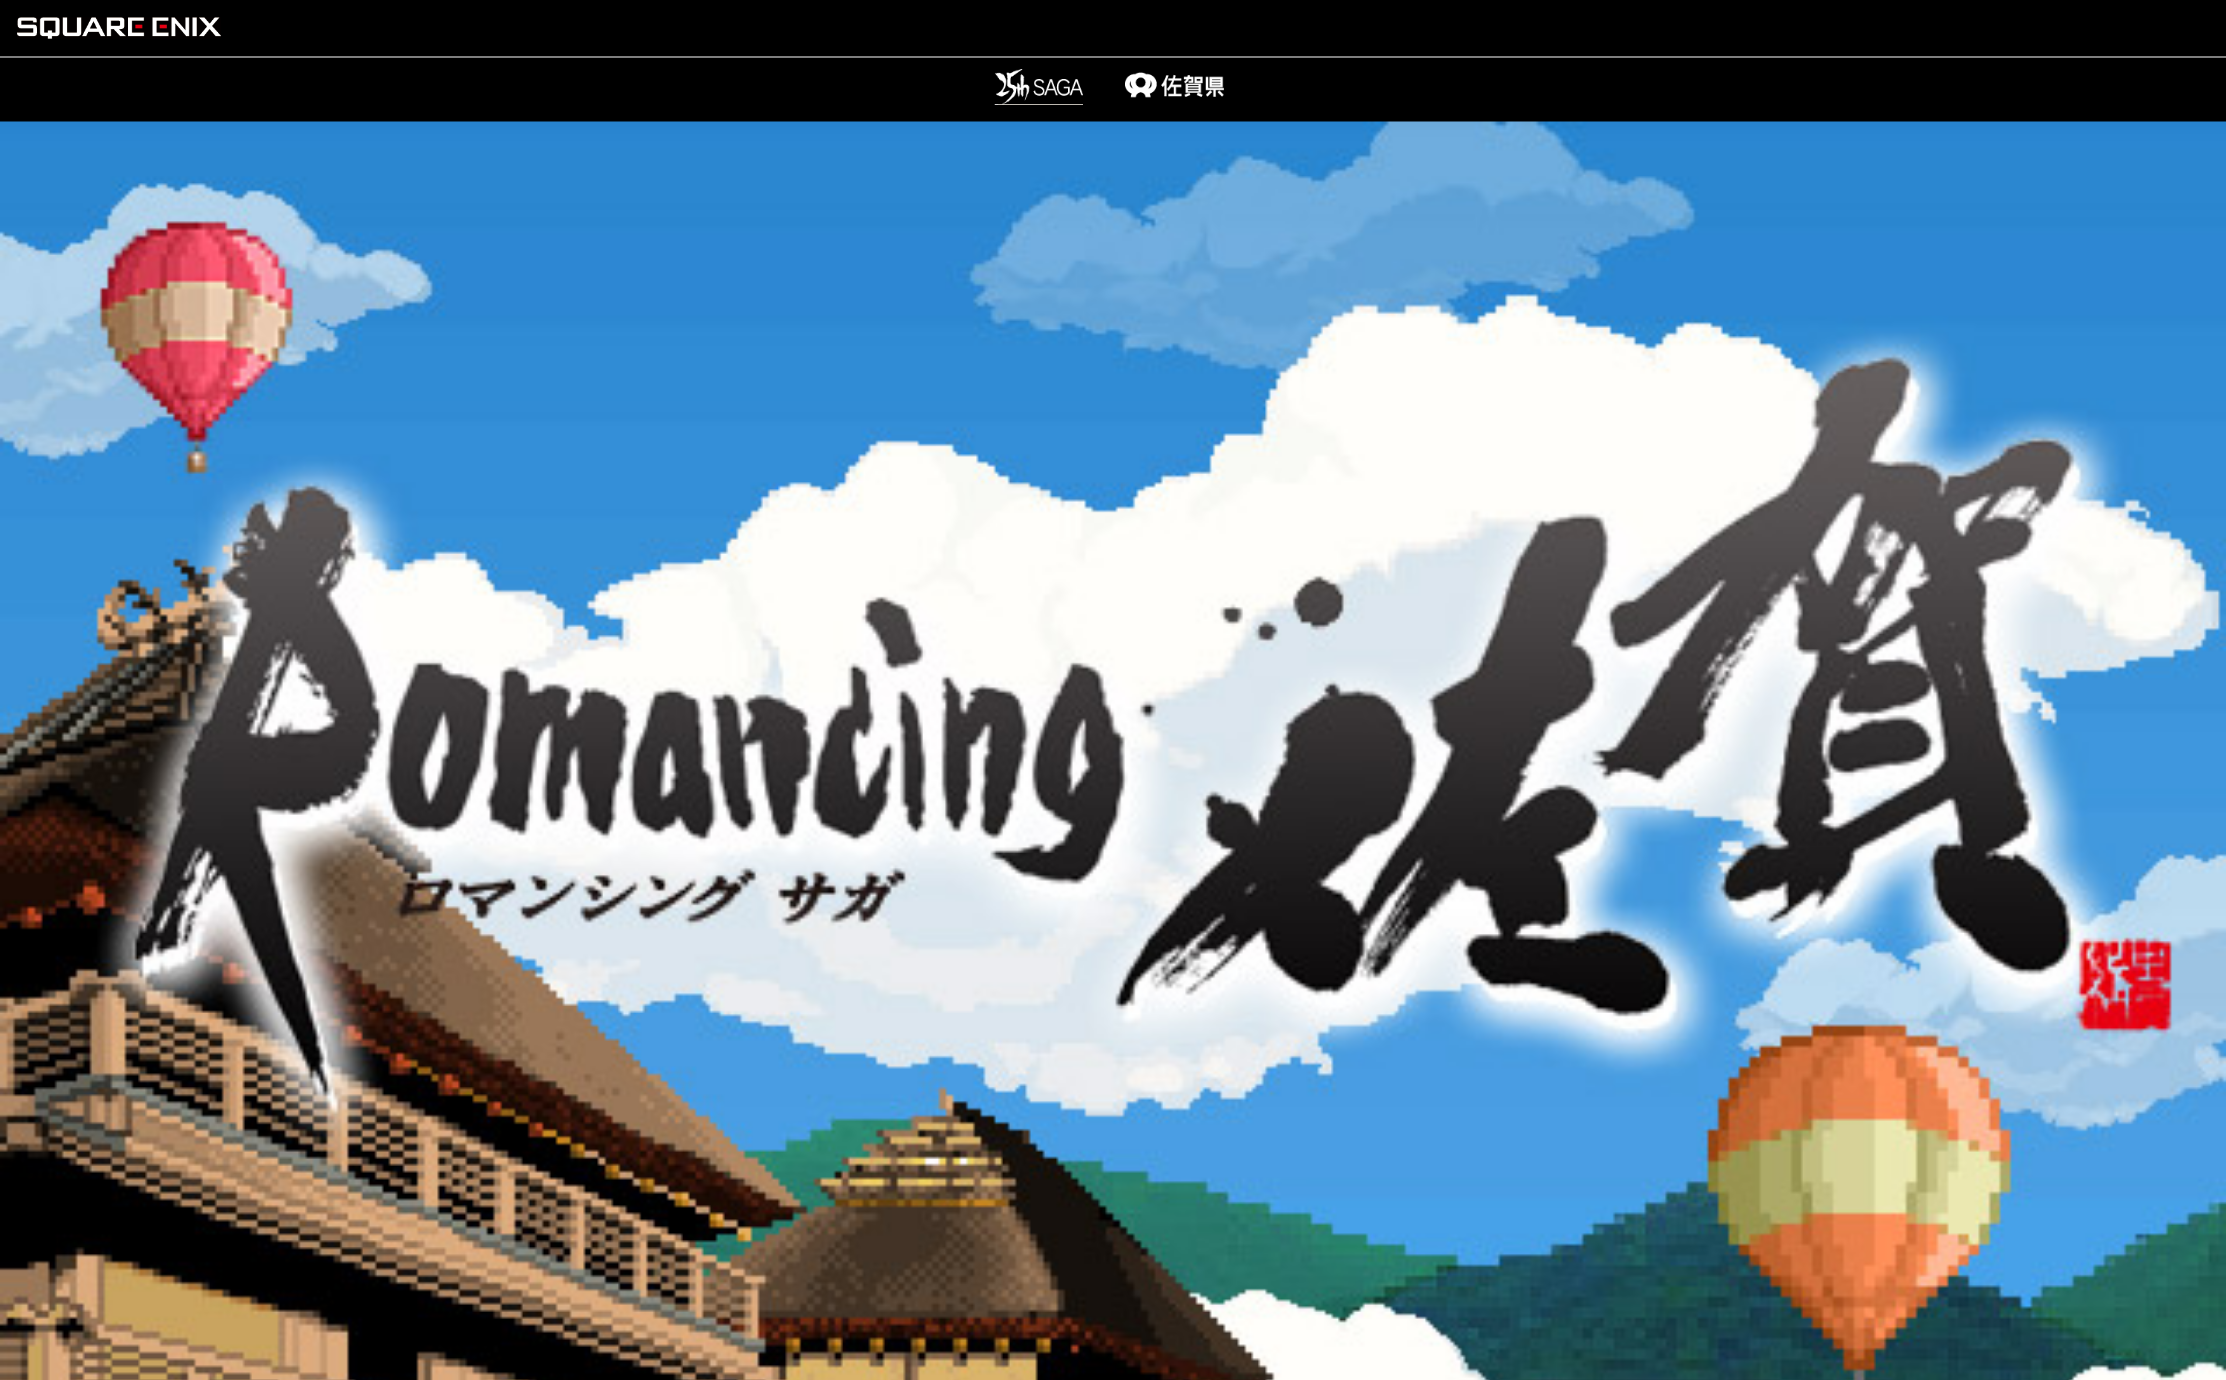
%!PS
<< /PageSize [2226 1380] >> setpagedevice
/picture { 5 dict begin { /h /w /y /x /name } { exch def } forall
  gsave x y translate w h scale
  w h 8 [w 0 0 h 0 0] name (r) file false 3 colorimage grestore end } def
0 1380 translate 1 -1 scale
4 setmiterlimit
0 setgray
0 0 2226 1380 rectfill
0.494 setgray
0 56 2226 2 rectfill
(img1.rgb) 17 17 204 22 picture
(img2.rgb) 994 69 89 36 picture
(img3.rgb) 1125 72 99 26 picture
(img4.rgb) 0 121 2226 1259 picture
showpage
